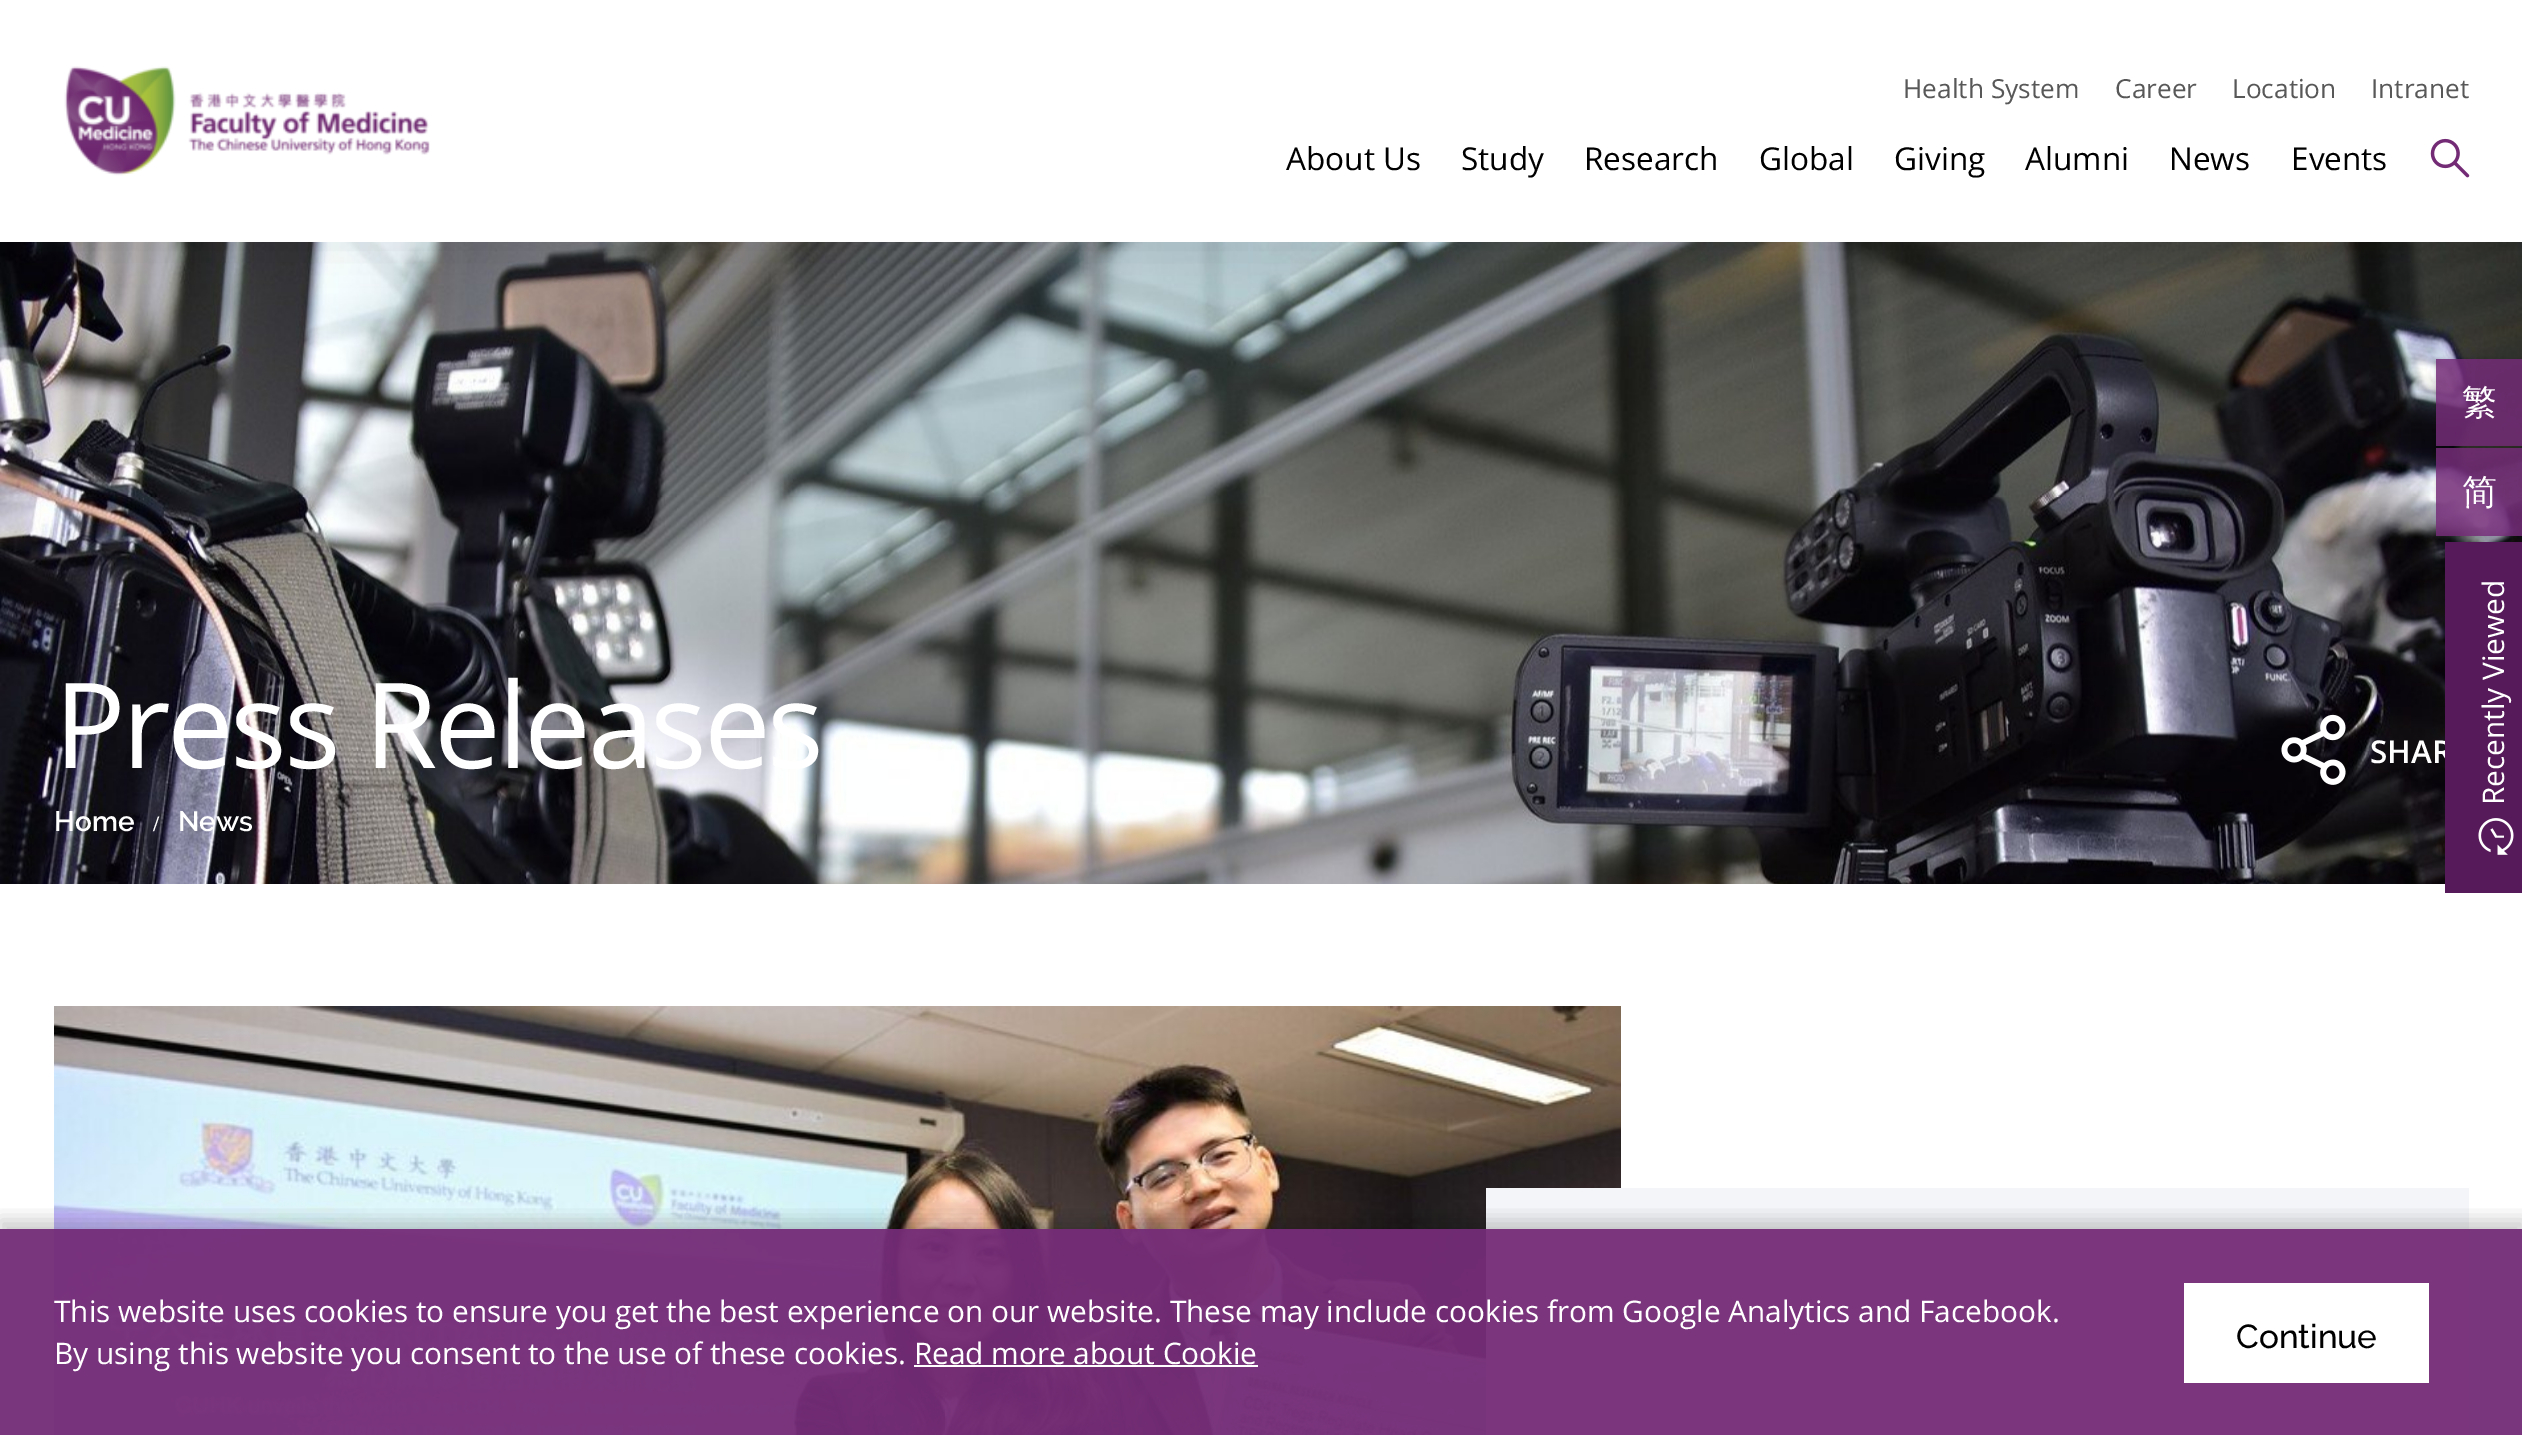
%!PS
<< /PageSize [2522 1435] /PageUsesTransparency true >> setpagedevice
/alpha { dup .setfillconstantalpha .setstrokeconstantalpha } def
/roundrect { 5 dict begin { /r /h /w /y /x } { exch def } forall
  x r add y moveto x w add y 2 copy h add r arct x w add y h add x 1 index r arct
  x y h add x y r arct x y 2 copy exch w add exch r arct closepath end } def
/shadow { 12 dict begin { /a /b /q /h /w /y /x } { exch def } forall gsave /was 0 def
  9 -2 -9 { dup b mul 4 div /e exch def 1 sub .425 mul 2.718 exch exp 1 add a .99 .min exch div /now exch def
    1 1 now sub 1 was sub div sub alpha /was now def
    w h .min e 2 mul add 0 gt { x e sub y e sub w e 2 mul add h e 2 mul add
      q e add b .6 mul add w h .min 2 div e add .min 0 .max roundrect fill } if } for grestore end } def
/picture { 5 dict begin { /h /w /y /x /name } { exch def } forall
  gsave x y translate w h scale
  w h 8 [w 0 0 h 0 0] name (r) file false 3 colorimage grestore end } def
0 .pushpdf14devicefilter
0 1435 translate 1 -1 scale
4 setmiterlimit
1 setgray
0 0 2522 1435 rectfill
(img3.rgb) 0 242 2522 642 picture
gsave
newpath 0 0 moveto 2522 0 lineto 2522 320 lineto 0 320 lineto closepath 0 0 moveto 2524 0 lineto 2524 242 lineto 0 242 lineto closepath eoclip newpath
0 setgray
-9 -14 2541 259 0 24.5 0.1 shadow
grestore
(img1.rgb) 64 66 366 110 picture
/OpenSans-Regular [26.25 0 0 -26.25 0 0] selectfont
0.345 setgray
1903 98 moveto (Health System) show
2115 98 moveto (Career) show
2232 98 moveto (Location) show
2371 98 moveto (Intranet) show
/OpenSans-Regular [31.5 0 0 -31.5 0 0] selectfont
0 setgray
1286 170 moveto (About Us) show
1461 170 moveto (Study) show
1584 170 moveto (Research) show
1759 170 moveto (Global) show
1894 170 moveto (Giving) show
2025 170 moveto (Alumni) show
2169 170 moveto (News) show
2291 170 moveto (Events) show
(img2.rgb) 2430 138 40 40 picture
gsave
newpath 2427 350 moveto 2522 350 lineto 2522 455 lineto 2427 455 lineto closepath 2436 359 moveto 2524 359 lineto 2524 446 lineto 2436 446 lineto closepath eoclip newpath
2436 359 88 87 0 2.5 0.15 shadow
grestore
0.85 alpha
0.451 0.169 0.463 setrgbcolor
2436 359 86 87 rectfill
/WenQuanYiZenHei-Medium [35 0 0 -35 0 0] selectfont
1 alpha
1 setgray
2462 414 moveto (繁) show
gsave
newpath 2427 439 moveto 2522 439 lineto 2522 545 lineto 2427 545 lineto closepath 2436 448 moveto 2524 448 lineto 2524 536 lineto 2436 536 lineto closepath eoclip newpath
0 setgray
2436 448 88 88 0 2.5 0.15 shadow
grestore
0.85 alpha
0.451 0.169 0.463 setrgbcolor
2436 448 86 88 rectfill
1 alpha
1 setgray
2462 504 moveto (简) show
/OpenSans-Regular [119 0 0 -119 0 0] selectfont
54 768 moveto -3.5 0 (Press Releases) ashow
(img4.rgb) 2281 714 65 71 picture
/OpenSans-SemiBold [31.5 0 0 -31.5 0 0] selectfont
2370 763 moveto (SHAR) show
/Raleway-SemiBold [28 0 0 -28 0 0] selectfont
54 831 moveto (Home) show
/LiberationSerif-Bold [22 0 0 -22 0 0] selectfont
153 831 moveto (/) show
/Raleway-SemiBold [28 0 0 -28 0 0] selectfont
178 831 moveto (News) show
(img5.rgb) 54 1006 1567 429 picture
0.957 0.961 0.976 setrgbcolor
1486 1188 983 247 rectfill
0.337 0.098 0.349 setrgbcolor
2445 542 77 351 rectfill
/OpenSans-Regular [29.75 0 0 -29.75 0 0] selectfont
1 setgray
gsave 2504 805 translate -90 rotate 0 0 moveto (Recently Viewed) show grestore
(img6.rgb) 2478 818 36 37 picture
gsave
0 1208 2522 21 rectclip
0 setgray
0 1220 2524 206 0 9 0.2 shadow
grestore
0.95 alpha
0.451 0.169 0.463 setrgbcolor
0 1229 2522 206 rectfill
1 alpha
1 setgray
54 1322 moveto (This website uses cookies to ensure you get the best experience on our website. These may include cookies from Google Analytics and Facebook.) show
54 1364 moveto (By using this website you consent to the use of these cookies. Read more about Cookie) show
914 1365 344 2 rectfill
2184 1283 245 100 rectfill
/Raleway-Medium [33.25 0 0 -33.25 0 0] selectfont
0 setgray
2236 1348 moveto (Continue) show
.poppdf14devicefilter showpage
